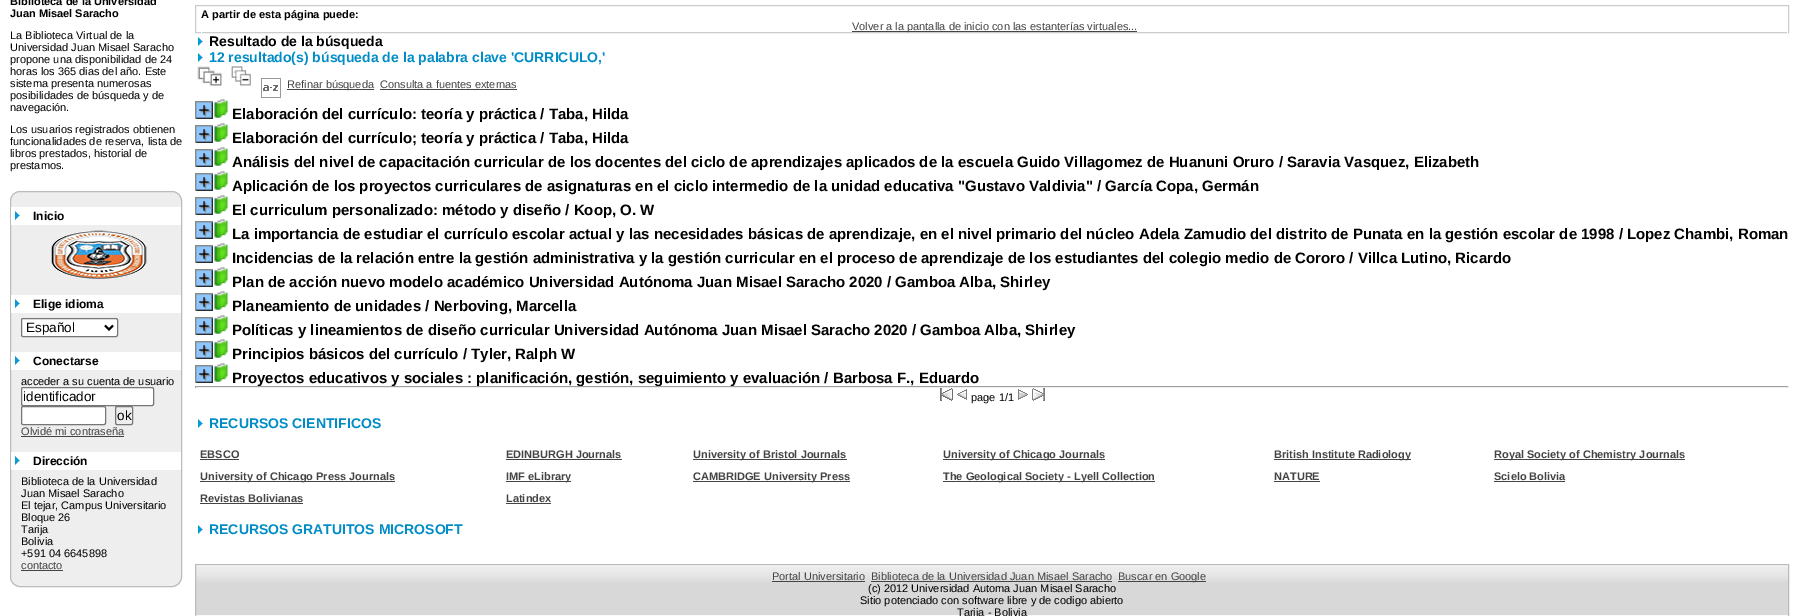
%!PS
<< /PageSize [1803 616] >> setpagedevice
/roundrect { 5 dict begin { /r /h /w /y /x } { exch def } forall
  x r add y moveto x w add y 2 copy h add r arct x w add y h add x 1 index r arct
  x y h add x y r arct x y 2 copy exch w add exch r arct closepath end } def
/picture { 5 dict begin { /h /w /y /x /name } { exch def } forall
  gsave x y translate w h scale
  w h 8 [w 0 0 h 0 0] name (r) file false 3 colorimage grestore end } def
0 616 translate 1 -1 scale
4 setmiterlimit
1 setgray
0 0 1803 616 rectfill
/LiberationSans-Bold [11 0 0 -11 0 0] selectfont
0 setgray
10 5 moveto (Biblioteca de la Universidad) show
10 17 moveto (Juan Misael Saracho) show
/LiberationSans-Regular [11 0 0 -11 0 0] selectfont
10 39 moveto (La Biblioteca Virtual de la) show
10 51 moveto (Universidad Juan Misael Saracho) show
10 63 moveto (propone una disponibilidad de 24) show
10 75 moveto (horas los 365 dias del año. Este) show
10 87 moveto (sistema presenta numerosas) show
10 99 moveto (posibilidades de búsqueda y de) show
10 111 moveto (navegación.) show
10 133 moveto (Los usuarios registrados obtienen) show
10 145 moveto (funcionalidades de reserva, lista de) show
10 157 moveto (libros prestados, historial de) show
10 169 moveto (prestamos.) show
0.8 setgray
195.5 5.5 1593 27 rectstroke
/LiberationSans-Bold [11 0 0 -11 0 0] selectfont
0 setgray
201 18 moveto (A partir de esta página puede:) show
1 setgray
1787 32 1 1 rectfill
201 32 1 1 rectfill
0.267 setgray
852 31 285 1 rectfill
/LiberationSans-Regular [11 0 0 -11 0 0] selectfont
852 30 moveto (Volver a la pantalla de inicio con las estanterías virtuales...) show
(img1.rgb) 198 37 5 9 picture
/LiberationSans-Bold [14 0 0 -14 0 0] selectfont
0 setgray
209 46 moveto (Resultado de la búsqueda) show
(img1.rgb) 198 53 5 9 picture
0 0.549 0.776 setrgbcolor
209 62 moveto (12 resultado\(s\) búsqueda de la palabra clave 'CURRICULO,') show
(img2.rgb) 197 66 25 20 picture
(img3.rgb) 231 66 20 20 picture
(img4.rgb) 261 78 20 20 picture
0.267 setgray
287 89 87 1 rectfill
/LiberationSans-Regular [11 0 0 -11 0 0] selectfont
287 88 moveto (Refinar búsqueda) show
380 88 moveto (Consulta a fuentes externas) show
380 89 137 1 rectfill
0.549 0.776 1 setrgbcolor
196 102 16 16 rectfill
(img5.rgb) 195 101 18 18 picture
(img6.rgb) 213 99 15 19 picture
/LiberationSans-Bold [15 0 0 -15 0 0] selectfont
0 setgray
232 119 moveto (Elaboración del currículo: teoría y práctica / Taba, Hilda) show
0.549 0.776 1 setrgbcolor
196 126 16 16 rectfill
(img5.rgb) 195 125 18 18 picture
(img6.rgb) 213 123 15 19 picture
0 setgray
232 143 moveto (Elaboración del currículo; teoría y práctica / Taba, Hilda) show
0.549 0.776 1 setrgbcolor
196 150 16 16 rectfill
(img5.rgb) 195 149 18 18 picture
(img6.rgb) 213 147 15 19 picture
0 setgray
232 167 moveto (Análisis del nivel de capacitación curricular de los docentes del ciclo de aprendizajes aplicados de la escuela Guido Villagomez de Huanuni Oruro / Saravia Vasquez, Elizabeth) show
0.549 0.776 1 setrgbcolor
196 174 16 16 rectfill
(img5.rgb) 195 173 18 18 picture
(img6.rgb) 213 171 15 19 picture
0 setgray
232 191 moveto (Aplicación de los proyectos curriculares de asignaturas en el ciclo intermedio de la unidad educativa "Gustavo Valdivia" / García Copa, Germán) show
0.549 0.776 1 setrgbcolor
196 198 16 16 rectfill
(img5.rgb) 195 197 18 18 picture
(img6.rgb) 213 195 15 19 picture
0 setgray
232 215 moveto (El curriculum personalizado: método y diseño / Koop, O. W) show
0.549 0.776 1 setrgbcolor
196 222 16 16 rectfill
(img5.rgb) 195 221 18 18 picture
(img6.rgb) 213 219 15 19 picture
0 setgray
232 239 moveto (La importancia de estudiar el currículo escolar actual y las necesidades básicas de aprendizaje, en el nivel primario del núcleo Adela Zamudio del distrito de Punata en la gestión escolar de 1998 / Lopez Chambi, Roman) show
0.549 0.776 1 setrgbcolor
196 246 16 16 rectfill
(img5.rgb) 195 245 18 18 picture
(img6.rgb) 213 243 15 19 picture
0 setgray
232 263 moveto (Incidencias de la relación entre la gestión administrativa y la gestión curricular en el proceso de aprendizaje de los estudiantes del colegio medio de Cororo / Villca Lutino, Ricardo) show
0.549 0.776 1 setrgbcolor
196 270 16 16 rectfill
(img5.rgb) 195 269 18 18 picture
(img6.rgb) 213 267 15 19 picture
0 setgray
232 287 moveto (Plan de acción nuevo modelo académico Universidad Autónoma Juan Misael Saracho 2020 / Gamboa Alba, Shirley) show
0.549 0.776 1 setrgbcolor
196 294 16 16 rectfill
(img5.rgb) 195 293 18 18 picture
(img7.rgb) 213 291 15 19 picture
0 setgray
232 311 moveto (Planeamiento de unidades / Nerboving, Marcella) show
0.549 0.776 1 setrgbcolor
196 318 16 16 rectfill
(img5.rgb) 195 317 18 18 picture
(img6.rgb) 213 315 15 19 picture
0 setgray
232 335 moveto (Políticas y lineamientos de diseño curricular Universidad Autónoma Juan Misael Saracho 2020 / Gamboa Alba, Shirley) show
0.549 0.776 1 setrgbcolor
196 342 16 16 rectfill
(img5.rgb) 195 341 18 18 picture
(img6.rgb) 213 339 15 19 picture
0 setgray
232 359 moveto (Principios básicos del currículo / Tyler, Ralph W) show
0.549 0.776 1 setrgbcolor
196 366 16 16 rectfill
(img5.rgb) 195 365 18 18 picture
(img6.rgb) 213 363 15 19 picture
0 setgray
232 383 moveto (Proyectos educativos y sociales : planificación, gestión, seguimiento y evaluación / Barbosa F., Eduardo) show
0.624 setgray
195 386 1594 1 rectfill
0.933 setgray
1788 386 1 2 rectfill
195 387 1594 1 rectfill
0.624 setgray
195 386 1 2 rectfill
(img8.rgb) 940 388 13 13 picture
(img9.rgb) 957 389 10 11 picture
/LiberationSans-Regular [11 0 0 -11 0 0] selectfont
0 setgray
971 401 moveto (page 1/1) show
(img10.rgb) 1018 389 10 11 picture
(img11.rgb) 1032 388 13 13 picture
(img1.rgb) 198 419 5 9 picture
/LiberationSans-Bold [14 0 0 -14 0 0] selectfont
0 0.549 0.776 setrgbcolor
209 428 moveto (RECURSOS CIENTIFICOS) show
/LiberationSans-Bold [11 0 0 -11 0 0] selectfont
0.267 setgray
200 458 moveto (EBSCO) show
200 459 39 1 rectfill
506 458 moveto (EDINBURGH Journals) show
506 459 116 1 rectfill
693 459 154 1 rectfill
693 458 moveto (University of Bristol Journals) show
943 459 162 1 rectfill
943 458 moveto (University of Chicago Journals) show
1274 459 137 1 rectfill
1274 458 moveto (British Institute Radiology) show
1494 459 191 1 rectfill
1494 458 moveto (Royal Society of Chemistry Journals) show
200 481 195 1 rectfill
200 480 moveto (University of Chicago Press Journals) show
506 481 65 1 rectfill
506 480 moveto (IMF eLibrary) show
693 481 157 1 rectfill
693 480 moveto (CAMBRIDGE University Press) show
943 481 212 1 rectfill
943 480 moveto (The Geological Society - Lyell Collection) show
1274 480 moveto (NATURE) show
1274 481 46 1 rectfill
1494 480 moveto (Scielo Bolivia) show
1494 481 71 1 rectfill
200 502 moveto (Revistas Bolivianas) show
200 503 103 1 rectfill
506 502 moveto (Latindex) show
506 503 45 1 rectfill
(img1.rgb) 198 525 5 9 picture
/LiberationSans-Bold [14 0 0 -14 0 0] selectfont
0 0.549 0.776 setrgbcolor
209 534 moveto (RECURSOS GRATUITOS MICROSOFT) show
(img12.rgb) 196 565 1592 51 picture
0.733 setgray
195.5 564.5 1593 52 rectstroke
/LiberationSans-Regular [11 0 0 -11 0 0] selectfont
0.267 setgray
772 580 moveto (Portal Universitario) show
772 581 93 1 rectfill
871 580 moveto (Biblioteca de la Universidad Juan Misael Saracho) show
871 581 241 1 rectfill
1118 581 88 1 rectfill
1118 580 moveto (Buscar en Google) show
0 setgray
868 592 moveto (\(c\) 2012 Universidad Automa Juan Misael Saracho) show
860 604 moveto (Sitio potenciado con software libre y de codigo abierto) show
957 616 moveto (Tarija - Bolivia) show
0.933 setgray
10.5 191.5 171 395 9.5 roundrect gsave fill grestore
0.733 setgray
stroke
1 setgray
11 207 170 18 rectfill
(img1.rgb) 15 211 5 9 picture
/LiberationSans-Bold [12 0 0 -12 0 0] selectfont
0 setgray
33 220 moveto (Inicio) show
(img13.rgb) 51 230 96 49 picture
1 setgray
11 295 170 18 rectfill
(img1.rgb) 15 299 5 9 picture
0 setgray
33 308 moveto (Elige idioma) show
1 setgray
21.5 318.5 96 18 1.5 roundrect gsave fill grestore
0.463 setgray
stroke
0 setgray
2 setlinewidth
newpath 105 325.5 moveto 109 329.5 lineto 113 325.5 lineto stroke
/LiberationSans-Regular [13.5 0 0 -13.5 0 0] selectfont
26 332 moveto (Español) show
1 setgray
11 352 170 18 rectfill
(img1.rgb) 15 356 5 9 picture
/LiberationSans-Bold [12 0 0 -12 0 0] selectfont
0 setgray
33 365 moveto (Conectarse) show
/LiberationSans-Regular [11 0 0 -11 0 0] selectfont
21 385 moveto (acceder a su cuenta de usuario) show
1 setgray
21.5 387.5 132 18 1.5 roundrect gsave fill grestore
0.463 setgray
1 setlinewidth
stroke
/LiberationSans-Regular [13.5 0 0 -13.5 0 0] selectfont
0 setgray
23 401 moveto (identificador) show
1 setgray
21.5 406.5 84 18 1.5 roundrect gsave fill grestore
0.463 setgray
stroke
115.5 406.5 17 18 1.5 roundrect stroke
0 setgray
117 420 moveto (ok) show
/LiberationSans-Regular [11 0 0 -11 0 0] selectfont
0.267 setgray
21 435 moveto (Olvidé mi contraseña) show
21 436 103 1 rectfill
1 setgray
11 452 170 18 rectfill
(img1.rgb) 15 456 5 9 picture
/LiberationSans-Bold [12 0 0 -12 0 0] selectfont
0 setgray
33 465 moveto (Dirección) show
/LiberationSans-Regular [11 0 0 -11 0 0] selectfont
21 485 moveto (Biblioteca de la Universidad) show
21 497 moveto (Juan Misael Saracho) show
21 509 moveto (El tejar, Campus Universitario) show
21 521 moveto (Bloque 26) show
21 533 moveto (Tarija) show
21 545 moveto (Bolivia) show
21 557 moveto (+591 04 6645898) show
0.267 setgray
21 569 moveto (contacto) show
21 570 42 1 rectfill
showpage
